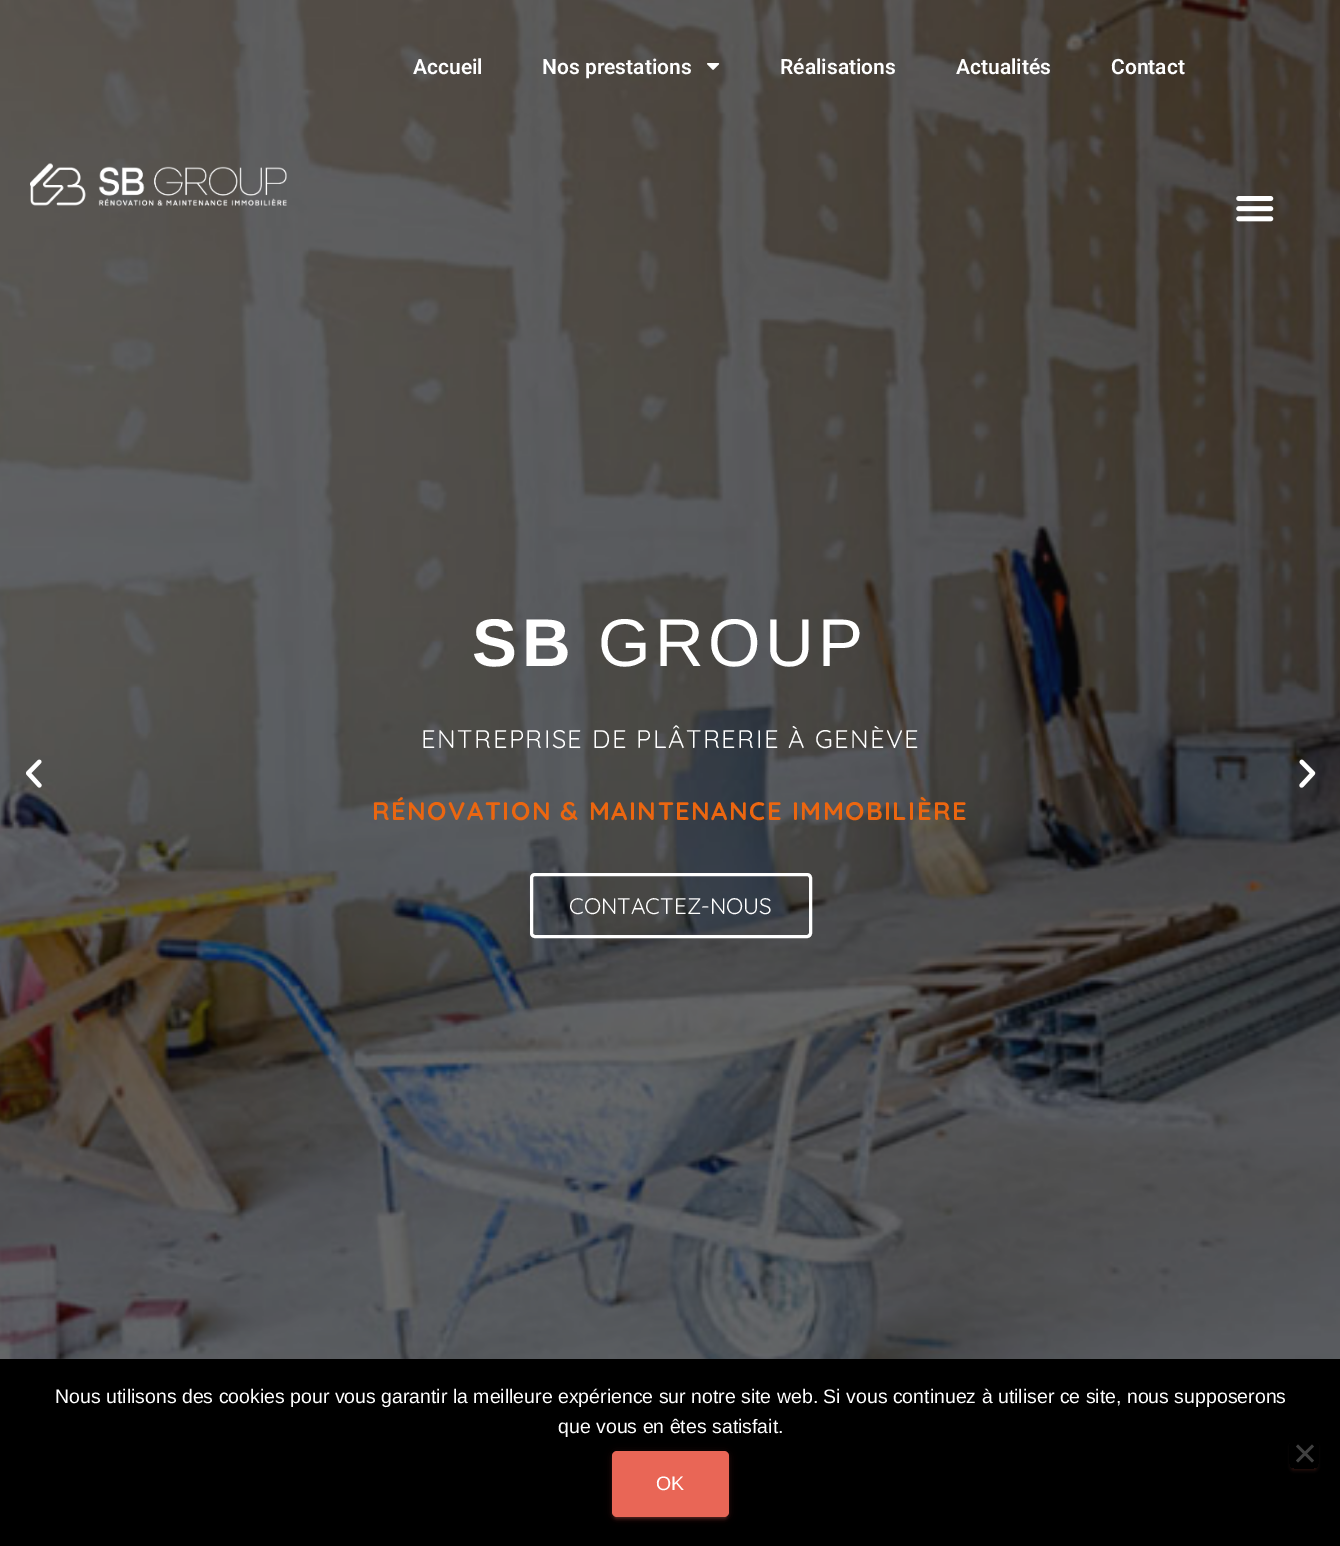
%!PS
<< /PageSize [1340 1546] /PageUsesTransparency true >> setpagedevice
/alpha { dup .setfillconstantalpha .setstrokeconstantalpha } def
/roundrect { 5 dict begin { /r /h /w /y /x } { exch def } forall
  x r add y moveto x w add y 2 copy h add r arct x w add y h add x 1 index r arct
  x y h add x y r arct x y 2 copy exch w add exch r arct closepath end } def
/shadow { 12 dict begin { /a /b /q /h /w /y /x } { exch def } forall gsave /was 0 def
  9 -2 -9 { dup b mul 4 div /e exch def 1 sub .425 mul 2.718 exch exp 1 add a .99 .min exch div /now exch def
    1 1 now sub 1 was sub div sub alpha /was now def
    w h .min e 2 mul add 0 gt { x e sub y e sub w e 2 mul add h e 2 mul add
      q e add b .6 mul add w h .min 2 div e add .min 0 .max roundrect fill } if } for grestore end } def
/picture { 5 dict begin { /h /w /y /x /name } { exch def } forall
  gsave x y translate w h scale
  w h 8 [w 0 0 h 0 0] name (r) file false 3 colorimage grestore end } def
0 .pushpdf14devicefilter
0 1546 translate 1 -1 scale
4 setmiterlimit
1 setgray
0 0 1340 1546 rectfill
(img5.rgb) 0 0 1340 1359 picture
/Roboto-SemiBold [21 0 0 -21 0 0] selectfont
413 74 moveto (Accueil) show
542 74 moveto (Nos prestations) show
(img1.rgb) 707 63 13 7 picture
780 74 moveto (Réalisations) show
956 74 moveto (Actualités) show
1111 74 moveto (Contact) show
(img2.rgb) 1236 196 38 26 picture
(img3.rgb) 30 163 257 43 picture
(img4.rgb) 26 759 16 29 picture
/LiberationSans-Bold [67.5 0 0 -67.5 0 0] selectfont
472 666 moveto 4.5 0 (SB) ashow
/LiberationSans-Regular [67.5 0 0 -67.5 0 0] selectfont
598 666 moveto 4.5 0 (GROUP) ashow
/Quicksand-Regular [25.5 0 0 -25.5 0 0] selectfont
421 748 moveto 1.5 0 (ENTREPRISE DE PLÂTRERIE À GENÈVE) ashow
/Quicksand-Bold [25.5 0 0 -25.5 0 0] selectfont
0.922 0.4 0.063 setrgbcolor
372 820 moveto 1.5 0 (RÉNOVATION & MAINTENANCE IMMOBILIÈRE) ashow
1 setgray
3 setlinewidth
531.5 874.5 279 62 3.5 roundrect stroke
/Quicksand-Regular [22.5 0 0 -22.5 0 0] selectfont
569 914 moveto (CONTACTEZ-NOUS) show
(img6.rgb) 1299 759 17 29 picture
0 setgray
0 1359 1340 187 rectfill
/LiberationSans-Regular [19.5 0 0 -19.5 0 0] selectfont
1 setgray
55 1403 moveto (Nous utilisons des cookies pour vous garantir la meilleure expérience sur notre site web. Si vous continuez à utiliser ce site, nous supposerons) show
558 1433 moveto (que vous en êtes satisfait.) show
gsave
newpath 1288 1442 moveto 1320 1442 lineto 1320 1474 lineto 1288 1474 lineto closepath 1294 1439 moveto 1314 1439 lineto 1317 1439 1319 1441 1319 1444 curveto 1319 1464 lineto 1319 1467 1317 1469 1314 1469 curveto 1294 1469 lineto 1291 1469 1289 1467 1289 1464 curveto 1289 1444 lineto 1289 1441 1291 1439 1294 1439 curveto closepath eoclip newpath
0.459 0.2 0.169 setrgbcolor
1292 1446 24 24 1.5 1 0.2 shadow
grestore
gsave
newpath 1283 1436 moveto 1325 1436 lineto 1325 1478 lineto 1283 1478 lineto closepath 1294 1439 moveto 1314 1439 lineto 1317 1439 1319 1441 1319 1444 curveto 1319 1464 lineto 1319 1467 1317 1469 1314 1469 curveto 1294 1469 lineto 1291 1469 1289 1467 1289 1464 curveto 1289 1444 lineto 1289 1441 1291 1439 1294 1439 curveto closepath eoclip newpath
0.459 0.2 0.169 setrgbcolor
1289 1442 30 30 5 1.5 0.14 shadow
grestore
0.251 setgray
newpath 1312 1444.5 moveto 1314 1446.5 lineto 1298 1462.5 lineto 1296 1460.5 lineto closepath fill
newpath 1296 1446.5 moveto 1298 1444.5 lineto 1314 1460.5 lineto 1312 1462.5 lineto closepath fill
0.914 0.4 0.337 setrgbcolor
612 1452 117 66 5 4 0.12 shadow
615 1458 111 60 1.5 1 0.2 shadow
612 1454 117 66 5 1.5 0.14 shadow
612 1451 117 66 5 roundrect fill
1 setgray
656 1490 moveto (OK) show
.poppdf14devicefilter showpage
